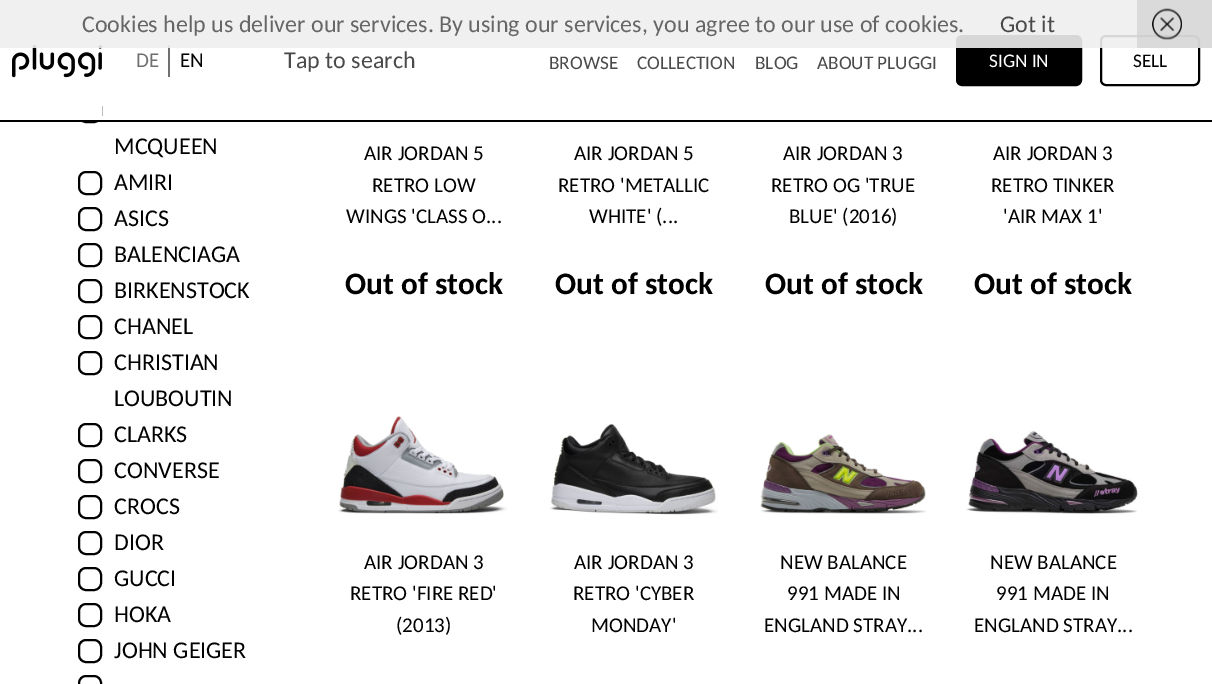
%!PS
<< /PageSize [1212 684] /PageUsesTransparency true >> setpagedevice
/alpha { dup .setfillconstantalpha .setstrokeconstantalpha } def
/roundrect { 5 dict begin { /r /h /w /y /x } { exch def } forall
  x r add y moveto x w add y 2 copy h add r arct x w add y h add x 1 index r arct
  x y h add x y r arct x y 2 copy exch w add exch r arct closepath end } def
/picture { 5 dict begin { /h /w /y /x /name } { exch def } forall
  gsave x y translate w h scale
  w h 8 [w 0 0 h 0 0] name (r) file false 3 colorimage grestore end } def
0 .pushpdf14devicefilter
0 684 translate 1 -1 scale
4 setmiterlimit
1 setgray
0 0 1212 684 rectfill
(img2.rgb) 12 45 90 33 picture
0.439 setgray
168 45 2 32 rectfill
0 setgray
957 36 124 49 5 roundrect gsave fill grestore
2 setlinewidth
stroke
1101 36 98 49 5 roundrect stroke
0.9 alpha
0.933 setgray
0 0 1212 48 rectfill
/Carlito-Regular [24 0 0 -24 0 0] selectfont
1 alpha
0.4 setgray
82 32 moveto (Cookies help us deliver our services. By using our services, you agree to our use of cookies.) show
0.29 setgray
1000 32 moveto (Got it) show
0.6 alpha
0.8 setgray
1137 0 75 48 rectfill
1 alpha
(img1.rgb) 1152 8 30 32 picture
0 setgray
79 100 22 22 7 roundrect stroke
1 setgray
78 99 24 21 rectfill
0 setgray
0 120 1212 2 rectfill
/Carlito-Regular [21 0 0 -21 0 0] selectfont
0.439 setgray
136 67 moveto (DE) show
0 setgray
180 67 moveto (EN) show
/Carlito-Regular [24 0 0 -24 0 0] selectfont
0.29 setgray
284 68 moveto (Tap to search) show
/Carlito-Regular [19.25 0 0 -19.25 0 0] selectfont
549 69 moveto (BROWSE) show
637 69 moveto (COLLECTION) show
755 69 moveto (BLOG) show
817 69 moveto (ABOUT PLUGGI) show
1 setgray
989 67 moveto (SIGN IN) show
0 setgray
1133 67 moveto (SELL) show
/Carlito-Regular [24 0 0 -24 0 0] selectfont
114 154 moveto (MCQUEEN) show
79 172 22 22 7 roundrect stroke
114 190 moveto (AMIRI) show
79 208 22 22 7 roundrect stroke
114 226 moveto (ASICS) show
79 244 22 22 7 roundrect stroke
114 262 moveto (BALENCIAGA) show
79 280 22 22 7 roundrect stroke
114 298 moveto (BIRKENSTOCK) show
79 316 22 22 7 roundrect stroke
114 334 moveto (CHANEL) show
79 352 22 22 7 roundrect stroke
114 370 moveto (CHRISTIAN) show
114 406 moveto (LOUBOUTIN) show
79 424 22 22 7 roundrect stroke
114 442 moveto (CLARKS) show
79 460 22 22 7 roundrect stroke
114 478 moveto (CONVERSE) show
79 496 22 22 7 roundrect stroke
114 514 moveto (CROCS) show
79 532 22 22 7 roundrect stroke
114 550 moveto (DIOR) show
79 568 22 22 7 roundrect stroke
114 586 moveto (GUCCI) show
79 604 22 22 7 roundrect stroke
114 622 moveto (HOKA) show
79 640 22 22 7 roundrect stroke
114 658 moveto (JOHN GEIGER) show
79 676 22 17 7 roundrect stroke
/Carlito-Regular [21 0 0 -21 0 0] selectfont
364 160 moveto (AIR JORDAN 5) show
372 192 moveto (RETRO LOW) show
346 223 moveto (WINGS 'CLASS O...) show
/Carlito-Bold [31.25 0 0 -31.25 0 0] selectfont
345 294 moveto (Out of stock) show
/Carlito-Regular [21 0 0 -21 0 0] selectfont
574 160 moveto (AIR JORDAN 5) show
558 192 moveto (RETRO 'METALLIC) show
589 223 moveto (WHITE' \(...) show
/Carlito-Bold [31.25 0 0 -31.25 0 0] selectfont
555 294 moveto (Out of stock) show
/Carlito-Regular [21 0 0 -21 0 0] selectfont
783 160 moveto (AIR JORDAN 3) show
771 192 moveto (RETRO OG 'TRUE) show
789 223 moveto (BLUE' \(2016\)) show
/Carlito-Bold [31.25 0 0 -31.25 0 0] selectfont
765 294 moveto (Out of stock) show
/Carlito-Regular [21 0 0 -21 0 0] selectfont
993 160 moveto (AIR JORDAN 3) show
991 192 moveto (RETRO TINKER) show
1003 223 moveto ('AIR MAX 1') show
/Carlito-Bold [31.25 0 0 -31.25 0 0] selectfont
974 294 moveto (Out of stock) show
(img3.rgb) 338 416 169 98 picture
/Carlito-Regular [21 0 0 -21 0 0] selectfont
364 569 moveto (AIR JORDAN 3) show
350 600 moveto (RETRO 'FIRE RED') show
396 632 moveto (\(2013\)) show
(img4.rgb) 550 424 168 91 picture
574 569 moveto (AIR JORDAN 3) show
573 600 moveto (RETRO 'CYBER) show
591 632 moveto (MONDAY') show
(img5.rgb) 760 434 167 80 picture
780 569 moveto (NEW BALANCE) show
787 600 moveto (991 MADE IN) show
764 632 moveto (ENGLAND STRAY...) show
(img6.rgb) 966 431 172 83 picture
990 569 moveto (NEW BALANCE) show
996 600 moveto (991 MADE IN) show
974 632 moveto (ENGLAND STRAY...) show
.poppdf14devicefilter showpage
